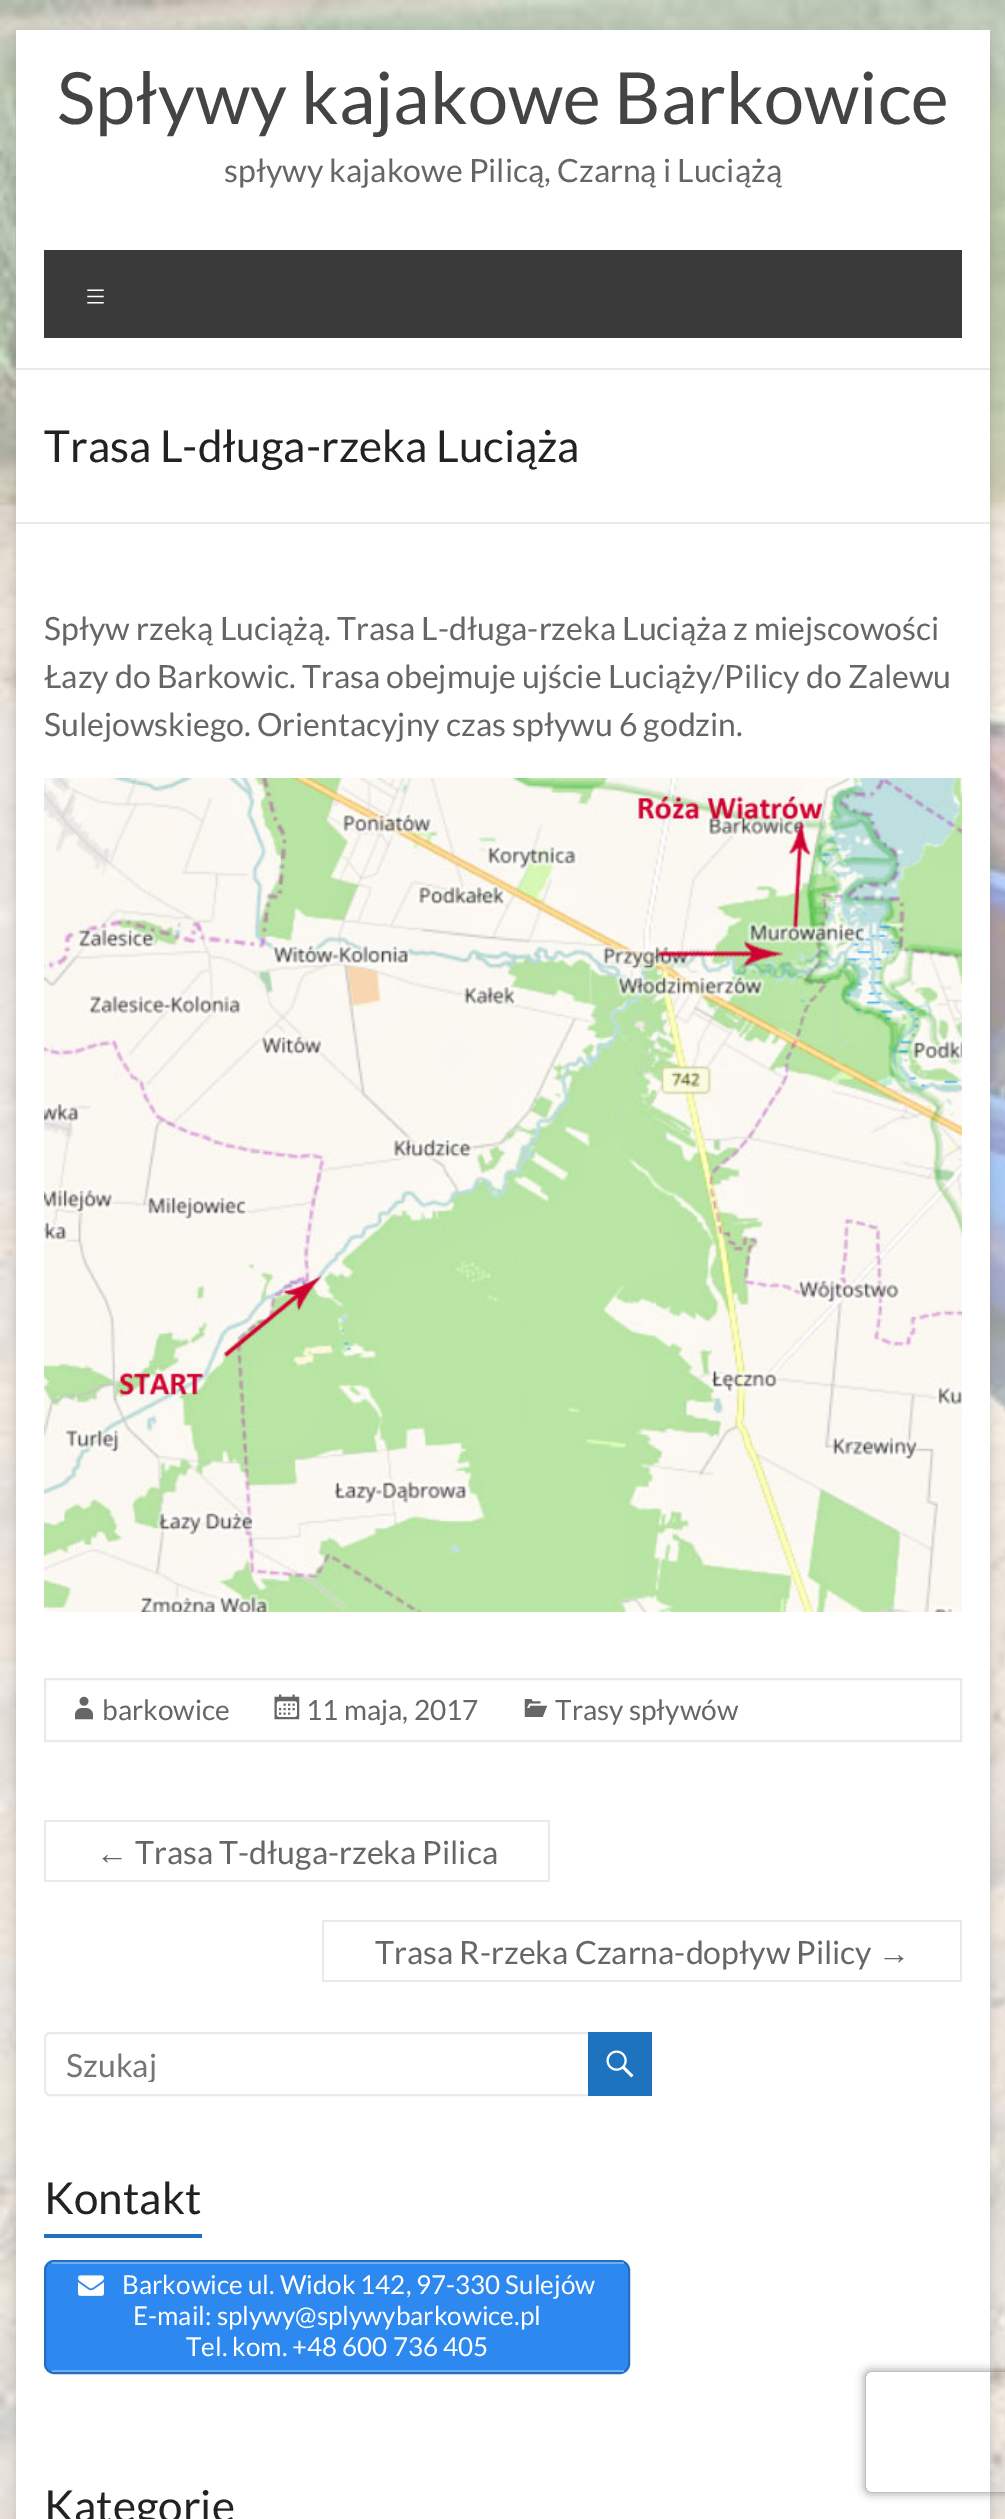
%!PS
<< /PageSize [1005 2519] /PageUsesTransparency true >> setpagedevice
/alpha { dup .setfillconstantalpha .setstrokeconstantalpha } def
/roundrect { 5 dict begin { /r /h /w /y /x } { exch def } forall
  x r add y moveto x w add y 2 copy h add r arct x w add y h add x 1 index r arct
  x y h add x y r arct x y 2 copy exch w add exch r arct closepath end } def
/shadow { 12 dict begin { /a /b /q /h /w /y /x } { exch def } forall gsave /was 0 def
  9 -2 -9 { dup b mul 4 div /e exch def 1 sub .425 mul 2.718 exch exp 1 add a .99 .min exch div /now exch def
    1 1 now sub 1 was sub div sub alpha /was now def
    w h .min e 2 mul add 0 gt { x e sub y e sub w e 2 mul add h e 2 mul add
      q e add b .6 mul add w h .min 2 div e add .min 0 .max roundrect fill } if } for grestore end } def
/picture { 5 dict begin { /h /w /y /x /name } { exch def } forall
  gsave x y translate w h scale
  w h 8 [w 0 0 h 0 0] name (r) file false 3 colorimage grestore end } def
0 .pushpdf14devicefilter
0 2519 translate 1 -1 scale
4 setmiterlimit
1 setgray
0 0 1005 2519 rectfill
(img1.rgb) 0 0 1005 2519 picture
0.392 setgray
16 34 974 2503 0 6 0.3 shadow
1 setgray
16 30 974 2489 rectfill
0.918 setgray
16 368 974 2 rectfill
/Lato-Regular [72 0 0 -72 0 0] selectfont
0.267 setgray
57 124 moveto (Spływy kajakowe Barkowice) show
/Lato-Regular [32 0 0 -32 0 0] selectfont
0.4 setgray
224 182 moveto (spływy kajakowe Pilicą, Czarną i Luciążą) show
0.227 setgray
44 250 918 88 rectfill
/Lato-Light [40 0 0 -40 0 0] selectfont
1 setgray
84 310 moveto (≡) show
0.918 setgray
16 522 974 2 rectfill
/Lato-Regular [44 0 0 -44 0 0] selectfont
0.133 setgray
44 462 moveto (Trasa L-długa-rzeka Luciąża) show
/Lato-Regular [32 0 0 -32 0 0] selectfont
0.4 setgray
44 640 moveto (Spływ rzeką Luciążą. Trasa L-długa-rzeka Luciąża z miejscowości) show
44 688 moveto (Łazy do Barkowic. Trasa obejmuje ujście Luciąży/Pilicy do Zalewu) show
44 736 moveto (Sulejowskiego. Orientacyjny czas spływu 6 godzin.) show
(img2.rgb) 44 778 918 834 picture
0.918 setgray
2 setlinewidth
45 1679 916 62 rectstroke
(img3.rgb) 75 1696 18 24 picture
/Lato-Regular [28 0 0 -28 0 0] selectfont
0.4 setgray
102 1720 moveto (barkowice) show
(img4.rgb) 274 1694 26 26 picture
306 1720 moveto (11 maja, 2017) show
(img5.rgb) 524 1699 24 18 picture
555 1720 moveto (Trasy spływów) show
/LiberationSans-Regular [32 0 0 -32 0 0] selectfont
96 1864 moveto (←) show
0.918 setgray
44 1880 84 2 rectfill
44 1820 506 2 rectfill
44 1820 2 62 rectfill
548 1820 2 62 rectfill
128 1880 422 2 rectfill
/Lato-Regular [32 0 0 -32 0 0] selectfont
0.4 setgray
135 1864 moveto (Trasa T-długa-rzeka Pilica) show
375 1964 moveto (Trasa R-rzeka Czarna-dopływ Pilicy) show
0.918 setgray
322 1920 640 2 rectfill
322 1980 556 2 rectfill
322 1920 2 62 rectfill
/LiberationSans-Regular [32 0 0 -32 0 0] selectfont
0.4 setgray
878 1964 moveto (→) show
0.918 setgray
960 1920 2 62 rectfill
878 1980 84 2 rectfill
45 2033 548 62 5 roundrect stroke
gsave
66 2044 506 38 rectclip
/Lato-Regular [32 0 0 -32 0 0] selectfont
0.459 setgray
66 2077 moveto (Szukaj) show
grestore
0.118 0.451 0.745 setrgbcolor
588 2032 64 64 rectfill
(img6.rgb) 606 2050 28 28 picture
/Lato-Regular [44 0 0 -44 0 0] selectfont
0.133 setgray
44 2214 moveto (Kontakt) show
0.118 0.451 0.745 setrgbcolor
44 2234 158 4 rectfill
0.176 0.537 0.937 setrgbcolor
45 2261 584 112 9 roundrect gsave fill grestore
0.141 0.431 0.753 setrgbcolor
stroke
0.424 0.678 0.957 setrgbcolor
52 2262 572 2 rectfill
52 2370 572 2 rectfill
(img7.rgb) 78 2275 26 21 picture
/Lato-Regular [26 0 0 -26 0 0] selectfont
1 setgray
122 2294 moveto (Barkowice ul. Widok 142, 97-330 Sulejów) show
133 2325 moveto (E-mail: splywy@splywybarkowice.pl) show
186 2356 moveto (Tel. kom. +48 600 736 405) show
/Lato-Regular [44 0 0 -44 0 0] selectfont
0.133 setgray
44 2522 moveto (Kategorie) show
gsave
newpath 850 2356 moveto 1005 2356 lineto 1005 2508 lineto 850 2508 lineto closepath 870 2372 moveto 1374 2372 lineto 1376 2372 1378 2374 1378 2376 curveto 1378 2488 lineto 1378 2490 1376 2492 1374 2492 curveto 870 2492 lineto 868 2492 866 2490 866 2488 curveto 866 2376 lineto 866 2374 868 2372 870 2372 curveto closepath eoclip newpath
0.502 setgray
866 2372 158 120 4 5 1 shadow
grestore
.poppdf14devicefilter showpage
